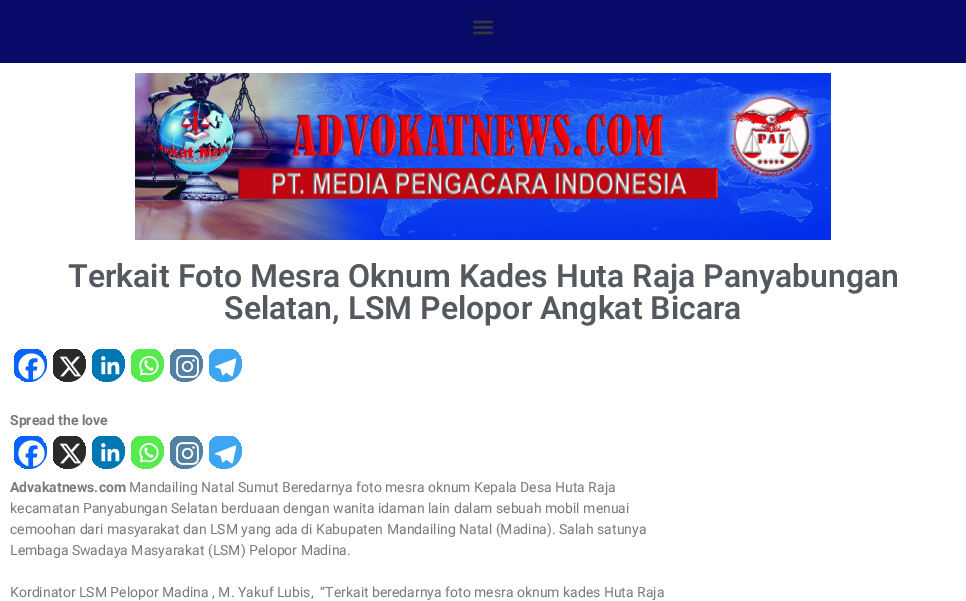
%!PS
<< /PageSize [966 601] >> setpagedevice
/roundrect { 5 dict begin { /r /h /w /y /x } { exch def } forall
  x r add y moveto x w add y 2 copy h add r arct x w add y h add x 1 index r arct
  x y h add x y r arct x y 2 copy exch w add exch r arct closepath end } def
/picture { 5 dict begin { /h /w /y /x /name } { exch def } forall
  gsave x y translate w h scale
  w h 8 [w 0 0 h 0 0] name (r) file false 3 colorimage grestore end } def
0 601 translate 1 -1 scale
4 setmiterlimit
1 setgray
0 0 966 601 rectfill
0.031 0.043 0.412 setrgbcolor
0 0 966 63 rectfill
0.031 0.039 0.392 setrgbcolor
467 10 33 33 3 roundrect fill
(img1.rgb) 473 20 20 15 picture
(img2.rgb) 135 73 696 167 picture
/Roboto-SemiBold [32 0 0 -32 0 0] selectfont
0.329 0.349 0.373 setrgbcolor
68 287 moveto (Terkait Foto Mesra Oknum Kades Huta Raja Panyabungan) show
224 319 moveto (Selatan, LSM Pelopor Angkat Bicara) show
gsave
12 347 35 35 17.5 roundrect clip newpath
0.027 0.396 0.996 setrgbcolor
newpath 14 349 moveto 47 349 lineto 47 364.5 lineto 47 374 39 382 29.5 382 curveto 14 382 lineto closepath fill
grestore
(img3.rgb) 18 353 27 27 picture
gsave
51 347 35 35 17.5 roundrect clip newpath
0.165 setgray
newpath 53 349 moveto 86 349 lineto 86 364.5 lineto 86 374 78 382 68.5 382 curveto 53 382 lineto closepath fill
grestore
(img4.rgb) 59 356 22 21 picture
gsave
90 347 35 35 17.5 roundrect clip newpath
0 0.467 0.71 setrgbcolor
newpath 92 349 moveto 125 349 lineto 125 364.5 lineto 125 374 117 382 107.5 382 curveto 92 382 lineto closepath fill
grestore
(img5.rgb) 101 356 19 19 picture
gsave
129 347 35 35 17.5 roundrect clip newpath
0.333 0.922 0.298 setrgbcolor
newpath 131 349 moveto 164 349 lineto 164 364.5 lineto 164 374 156 382 146.5 382 curveto 131 382 lineto closepath fill
grestore
(img6.rgb) 139 356 20 20 picture
gsave
168 347 35 35 17.5 roundrect clip newpath
0.322 0.498 0.643 setrgbcolor
newpath 170 349 moveto 203 349 lineto 203 364.5 lineto 203 374 195 382 185.5 382 curveto 170 382 lineto closepath fill
grestore
(img7.rgb) 176 355 23 23 picture
gsave
207 347 35 35 17.5 roundrect clip newpath
0.239 0.647 0.945 setrgbcolor
newpath 209 349 moveto 242 349 lineto 242 364.5 lineto 242 374 234 382 224.5 382 curveto 209 382 lineto closepath fill
grestore
(img8.rgb) 214 358 23 19 picture
/Roboto-Bold [14 0 0 -14 0 0] selectfont
0.478 setgray
10 425 moveto (Spread the love) show
gsave
12 434 35 35 17.5 roundrect clip newpath
0.027 0.396 0.996 setrgbcolor
newpath 14 436 moveto 47 436 lineto 47 451.5 lineto 47 461 39 469 29.5 469 curveto 14 469 lineto closepath fill
grestore
(img3.rgb) 18 440 27 27 picture
gsave
51 434 35 35 17.5 roundrect clip newpath
0.165 setgray
newpath 53 436 moveto 86 436 lineto 86 451.5 lineto 86 461 78 469 68.5 469 curveto 53 469 lineto closepath fill
grestore
(img4.rgb) 59 443 22 21 picture
gsave
90 434 35 35 17.5 roundrect clip newpath
0 0.467 0.71 setrgbcolor
newpath 92 436 moveto 125 436 lineto 125 451.5 lineto 125 461 117 469 107.5 469 curveto 92 469 lineto closepath fill
grestore
(img5.rgb) 101 443 19 19 picture
gsave
129 434 35 35 17.5 roundrect clip newpath
0.333 0.922 0.298 setrgbcolor
newpath 131 436 moveto 164 436 lineto 164 451.5 lineto 164 461 156 469 146.5 469 curveto 131 469 lineto closepath fill
grestore
(img6.rgb) 139 443 20 20 picture
gsave
168 434 35 35 17.5 roundrect clip newpath
0.322 0.498 0.643 setrgbcolor
newpath 170 436 moveto 203 436 lineto 203 451.5 lineto 203 461 195 469 185.5 469 curveto 170 469 lineto closepath fill
grestore
(img7.rgb) 176 442 23 23 picture
gsave
207 434 35 35 17.5 roundrect clip newpath
0.239 0.647 0.945 setrgbcolor
newpath 209 436 moveto 242 436 lineto 242 451.5 lineto 242 461 234 469 224.5 469 curveto 209 469 lineto closepath fill
grestore
(img8.rgb) 214 445 23 19 picture
10 492 moveto (Advakatnews.com) show
/Roboto-Regular [14 0 0 -14 0 0] selectfont
129 492 moveto (Mandailing Natal Sumut Beredarnya foto mesra oknum Kepala Desa Huta Raja) show
10 513 moveto (kecamatan Panyabungan Selatan berduaan dengan wanita idaman lain dalam sebuah mobil menuai) show
10 534 moveto (cemoohan dari masyarakat dan LSM yang ada di Kabupaten Mandailing Natal \(Madina\). Salah satunya) show
10 555 moveto (Lembaga Swadaya Masyarakat \(LSM\) Pelopor Madina.) show
10 597 moveto (Kordinator LSM Pelopor Madina , M. Yakuf Lubis,  “Terkait beredarnya foto mesra oknum kades Huta Raja) show
showpage
